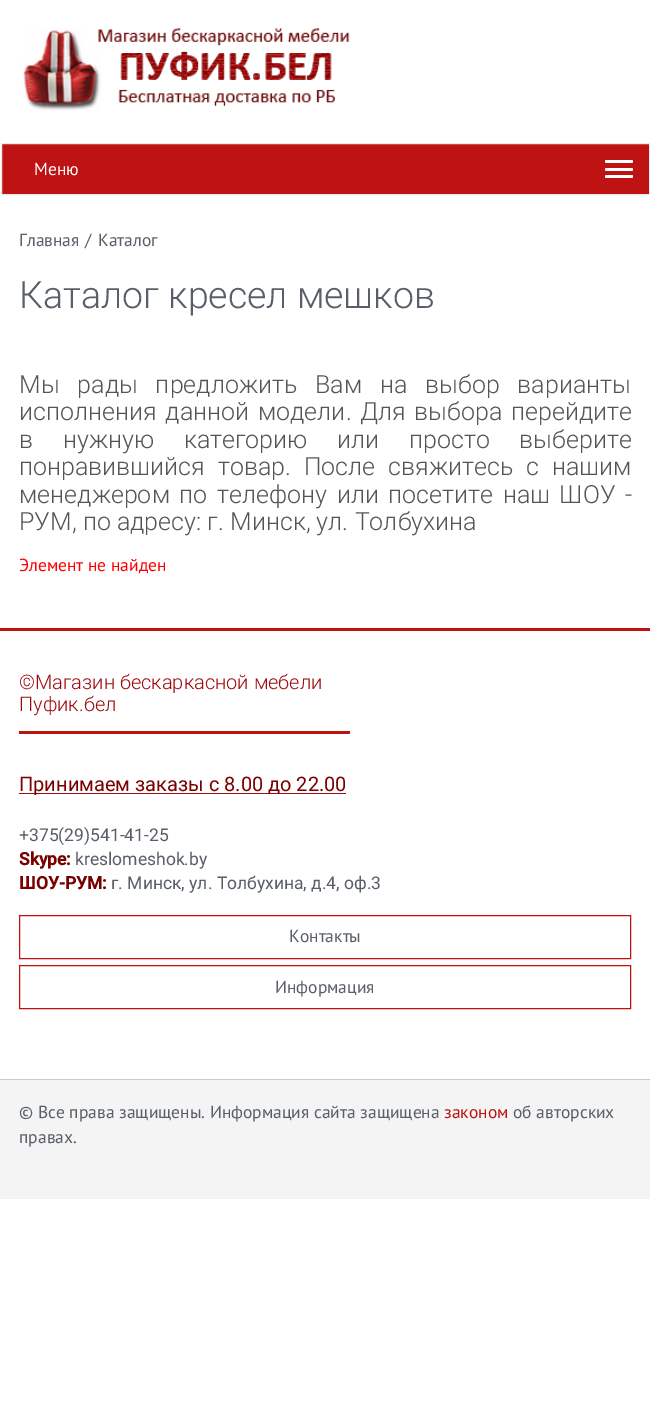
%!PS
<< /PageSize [650 1426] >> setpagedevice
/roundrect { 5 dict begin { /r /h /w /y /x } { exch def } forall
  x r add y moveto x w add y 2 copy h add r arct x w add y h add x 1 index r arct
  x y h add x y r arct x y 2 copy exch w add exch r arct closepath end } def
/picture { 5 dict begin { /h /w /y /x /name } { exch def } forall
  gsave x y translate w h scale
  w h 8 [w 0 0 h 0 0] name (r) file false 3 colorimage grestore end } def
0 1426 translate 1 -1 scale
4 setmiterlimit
1 setgray
0 0 650 1426 rectfill
(img1.rgb) 23 28 327 83 picture
0.749 0.075 0.075 setrgbcolor
newpath 1.5 143.5 moveto 649.5 143.5 lineto 649.5 194.5 lineto 1.5 194.5 lineto closepath gsave fill grestore
0.922 setgray
stroke
/PTSans-Regular [17.5 0 0 -17.5 0 0] selectfont
1 setgray
34 175 moveto (Меню) show
605 160 28 3 1.5 roundrect fill
605 168 28 3 1.5 roundrect fill
605 175 28 3 1.5 roundrect fill
0.345 0.373 0.412 setrgbcolor
19 246 moveto (Главная) show
85 246 moveto (/) show
98 246 moveto (Каталог) show
/Roboto-Light [37.5 0 0 -37.5 0 0] selectfont
19 308 moveto (Каталог кресел мешков) show
/Roboto-Light [25 0 0 -25 0 0] selectfont
0.333 setgray
19 393 moveto 11.75 0 32 (Мы рады предложить Вам на выбор варианты) widthshow
19 420 moveto 2.5 0 32 (исполнения данной модели. Для выбора перейдите) widthshow
19 448 moveto 23.5 0 32 (в нужную категорию или просто выберите) widthshow
19 475 moveto 6.75 0 32 (понравившийся товар. После свяжитесь с нашим) widthshow
19 503 moveto 3.5 0 32 (менеджером по телефону или посетите наш ШОУ -) widthshow
19 530 moveto (РУМ, по адресу: г. Минск, ул. Толбухина) show
/PTSans-Regular [17.5 0 0 -17.5 0 0] selectfont
1 0 0 setrgbcolor
19 571 moveto (Элемент не найден) show
0.749 0.075 0.075 setrgbcolor
0 628 650 3 rectfill
19 731 331 3 rectfill
/Roboto-Light [20 0 0 -20 0 0] selectfont
0.616 0.039 0.059 setrgbcolor
19 689 moveto (©Магазин бескаркасной мебели) show
19 711 moveto (Пуфик.бел) show
19 793 327 1 rectfill
/Roboto-Regular [20 0 0 -20 0 0] selectfont
0.475 0 0 setrgbcolor
19 791 moveto (Принимаем заказы с 8.00 до 22.00) show
/Roboto-Regular [17.5 0 0 -17.5 0 0] selectfont
0.345 0.373 0.412 setrgbcolor
19 841 moveto (+375\(29\)541-41-25) show
/Roboto-Bold [17.5 0 0 -17.5 0 0] selectfont
0.475 0 0 setrgbcolor
19 865 moveto (Skype:) show
/Roboto-Regular [17.5 0 0 -17.5 0 0] selectfont
0.345 0.373 0.412 setrgbcolor
75 865 moveto (kreslomeshok.by) show
/Roboto-Bold [17.5 0 0 -17.5 0 0] selectfont
0.475 0 0 setrgbcolor
19 889 moveto (ШОУ-РУМ:) show
/Roboto-Regular [17.5 0 0 -17.5 0 0] selectfont
0.345 0.373 0.412 setrgbcolor
111 889 moveto (г. Минск, ул. Толбухина, д.4, оф.3) show
0.749 0.075 0.075 setrgbcolor
19.5 915.5 611 43 rectstroke
/PTSans-Regular [17.5 0 0 -17.5 0 0] selectfont
0.345 0.373 0.412 setrgbcolor
289 942 moveto (Контакты) show
0.749 0.075 0.075 setrgbcolor
19.5 965.5 611 43 rectstroke
0.345 0.373 0.412 setrgbcolor
275 993 moveto (Информация) show
0.957 setgray
0 1080 650 119 rectfill
0.792 setgray
0 1079 650 1 rectfill
0.345 0.373 0.412 setrgbcolor
19 1118 moveto (© Все права защищены. Информация сайта защищена) show
0.749 0.075 0.075 setrgbcolor
444 1118 moveto (законом) show
0.345 0.373 0.412 setrgbcolor
513 1118 moveto (об авторских) show
19 1143 moveto (правах.) show
showpage
